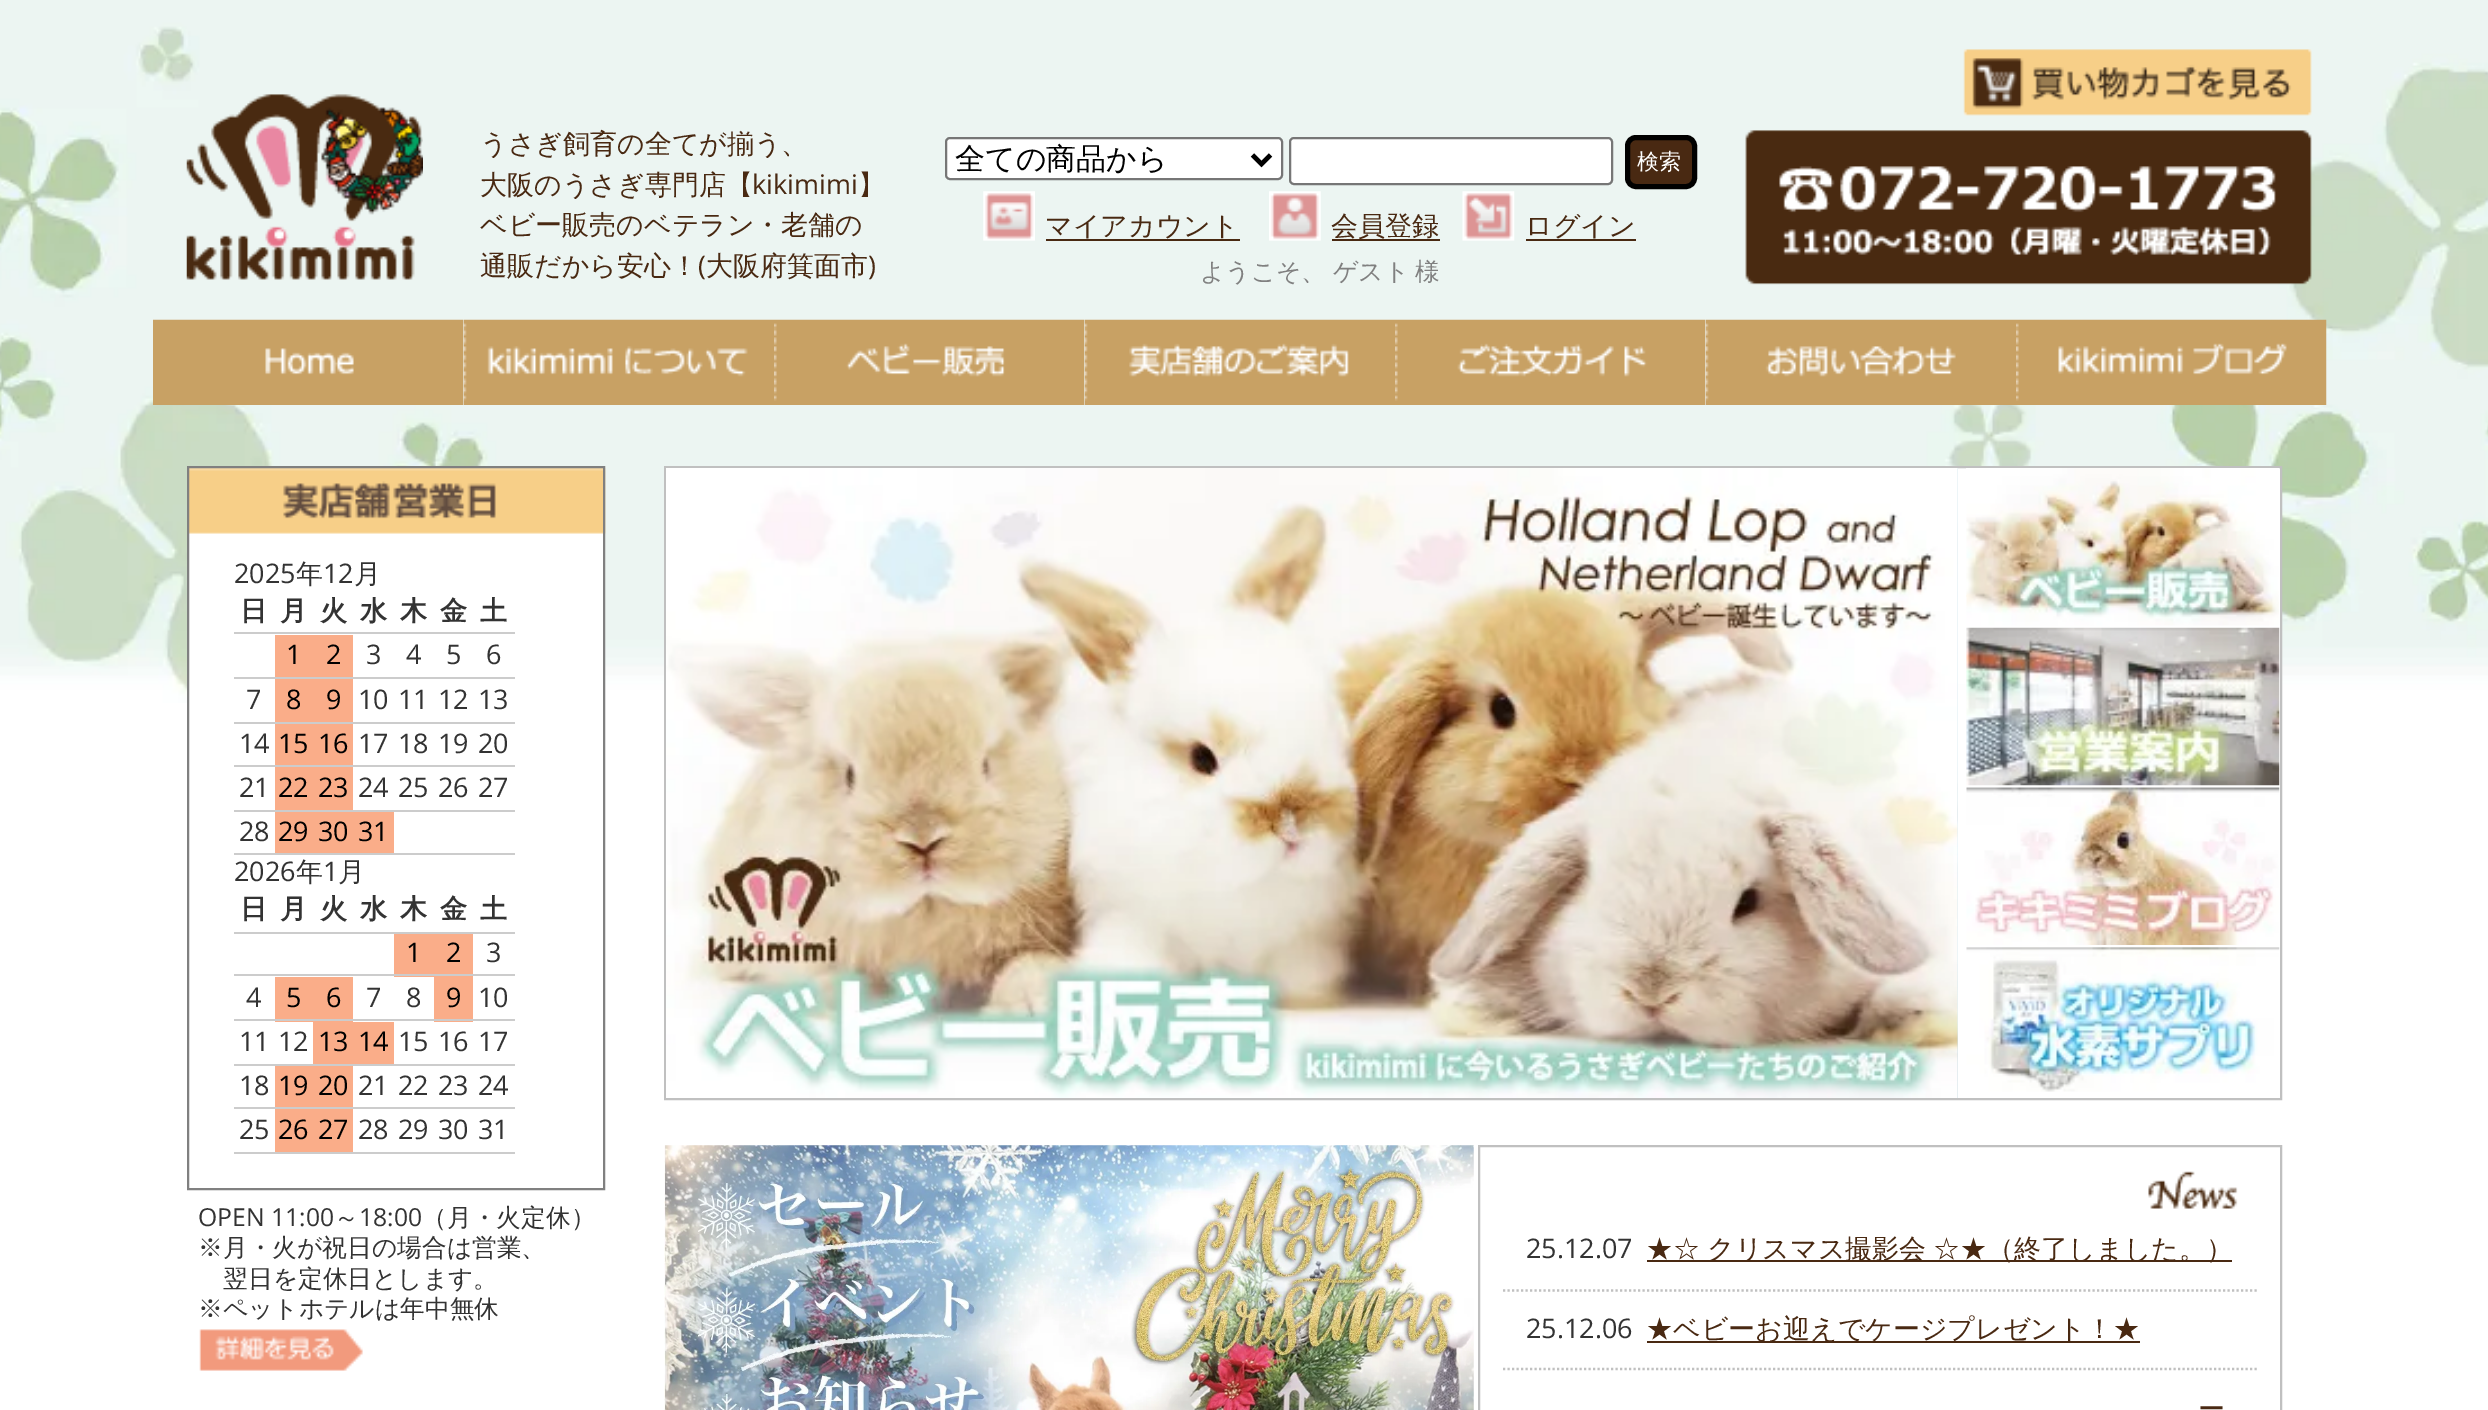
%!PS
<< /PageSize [2488 1410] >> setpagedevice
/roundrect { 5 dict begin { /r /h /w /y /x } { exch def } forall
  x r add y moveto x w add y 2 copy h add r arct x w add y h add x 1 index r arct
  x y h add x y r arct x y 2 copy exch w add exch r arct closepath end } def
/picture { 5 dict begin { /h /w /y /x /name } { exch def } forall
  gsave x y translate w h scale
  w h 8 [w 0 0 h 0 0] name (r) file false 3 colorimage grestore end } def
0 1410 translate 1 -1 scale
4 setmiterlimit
1 setgray
0 0 2488 1410 rectfill
(img1.rgb) 0 0 2488 703 picture
(img2.rgb) 186 94 237 186 picture
/WenQuanYiZenHei-Medium [27 0 0 -27 0 0] selectfont
0.286 0.161 0.071 setrgbcolor
480 153 moveto (うさぎ飼育の全てが揃う、) show
480 194 moveto (大阪のうさぎ専門店【) show
/OpenSans-Regular [27 0 0 -27 0 0] selectfont
752 194 moveto (kikimimi) show
/WenQuanYiZenHei-Medium [27 0 0 -27 0 0] selectfont
858 194 moveto (】) show
480 234 moveto (ベビー販売のベテラン・老舗の) show
480 275 moveto (通販だから安心！ 大阪府箕面市) show
/OpenSans-Regular [27 0 0 -27 0 0] selectfont
698 275 moveto (\() show
868 275 moveto (\)) show
1 setgray
946 138 336 41 4 roundrect gsave fill grestore
0.463 setgray
2 setlinewidth
stroke
0 setgray
4.5 setlinewidth
newpath 1252.5 155 moveto 1261.5 164 lineto 1270.5 155 lineto stroke
/WenQuanYiZenHei-Medium [30 0 0 -30 0 0] selectfont
955 169 moveto (全ての商品から) show
1 setgray
1290 138 322 46 4 roundrect gsave fill grestore
0.463 setgray
2 setlinewidth
stroke
0.286 0.161 0.071 setrgbcolor
1627.5 137.5 67 49 8.5 roundrect gsave fill grestore
0 setgray
5 setlinewidth
stroke
/WenQuanYiZenHei-Medium [22 0 0 -22 0 0] selectfont
1 setgray
1637 169 moveto (検索) show
(img3.rgb) 983 191 52 50 picture
/WenQuanYiZenHei-Medium [27 0 0 -27 0 0] selectfont
0.286 0.161 0.071 setrgbcolor
1045 235 moveto (マイアカウント) show
1046 239 194 2 rectfill
(img4.rgb) 1269 191 52 50 picture
1332 239 108 2 rectfill
1331 235 moveto (会員登録) show
(img5.rgb) 1462 191 53 50 picture
1525 235 moveto (ログイン) show
1526 239 110 2 rectfill
/WenQuanYiZenHei-Medium [24.75 0 0 -24.75 0 0] selectfont
0.502 setgray
1200 280 moveto (ようこそ、) show
1333 280 moveto (ゲスト) show
1415 280 moveto (様) show
(img6.rgb) 1963 49 349 67 picture
(img7.rgb) 1745 130 567 155 picture
(img8.rgb) 153 319 311 86 picture
(img9.rgb) 463 319 311 86 picture
(img10.rgb) 774 319 311 86 picture
(img11.rgb) 1084 319 311 86 picture
(img12.rgb) 1395 319 311 86 picture
(img13.rgb) 1705 319 311 86 picture
(img14.rgb) 2016 319 311 86 picture
(img15.rgb) 189 468 417 235 picture
2 setlinewidth
188 467 416 722 rectstroke
/OpenSans-Regular [27 0 0 -27 0 0] selectfont
0.2 setgray
234 583 moveto (2025) show
/WenQuanYiZenHei-Medium [27 0 0 -27 0 0] selectfont
296 583 moveto (年) show
/OpenSans-Regular [27 0 0 -27 0 0] selectfont
323 583 moveto (12) show
/WenQuanYiZenHei-Medium [27 0 0 -27 0 0] selectfont
354 583 moveto (月) show
/WenQuanYiZenHei-Bold [27 0 0 -27 0 0] selectfont
240 620 moveto (日) show
280 620 moveto (月) show
320 620 moveto (火) show
360 620 moveto (水) show
400 620 moveto (木) show
440 620 moveto (金) show
0.8 setgray
234 632 281 2 rectfill
0.2 setgray
480 620 moveto (土) show
0.98 0.678 0.537 setrgbcolor
275 635 78 42 rectfill
/OpenSans-Regular [27 0 0 -27 0 0] selectfont
0 setgray
286 664 moveto (1) show
326 664 moveto (2) show
0.2 setgray
366 664 moveto (3) show
406 664 moveto (4) show
446 664 moveto (5) show
0.8 setgray
234 677 281 2 rectfill
0.2 setgray
486 664 moveto (6) show
246 709 moveto (7) show
0.98 0.678 0.537 setrgbcolor
275 679 78 43 rectfill
0 setgray
286 709 moveto (8) show
326 709 moveto (9) show
0.2 setgray
358 709 moveto (10) show
398 709 moveto (11) show
438 709 moveto (12) show
0.8 setgray
234 722 281 2 rectfill
0.2 setgray
478 709 moveto (13) show
239 753 moveto (14) show
0.98 0.678 0.537 setrgbcolor
275 724 78 41 rectfill
0 setgray
278 753 moveto (15) show
318 753 moveto (16) show
0.2 setgray
358 753 moveto (17) show
398 753 moveto (18) show
438 753 moveto (19) show
0.8 setgray
234 765 281 2 rectfill
0.2 setgray
478 753 moveto (20) show
239 797 moveto (21) show
0.98 0.678 0.537 setrgbcolor
275 767 78 43 rectfill
0 setgray
278 797 moveto (22) show
318 797 moveto (23) show
0.2 setgray
358 797 moveto (24) show
398 797 moveto (25) show
438 797 moveto (26) show
0.8 setgray
234 810 281 2 rectfill
0.2 setgray
478 797 moveto (27) show
239 841 moveto (28) show
0.98 0.678 0.537 setrgbcolor
275 812 119 41 rectfill
0 setgray
278 841 moveto (29) show
318 841 moveto (30) show
358 841 moveto (31) show
0.8 setgray
234 853 281 2 rectfill
0.2 setgray
234 881 moveto (2026) show
/WenQuanYiZenHei-Medium [27 0 0 -27 0 0] selectfont
296 881 moveto (年) show
/OpenSans-Regular [27 0 0 -27 0 0] selectfont
323 881 moveto (1) show
/WenQuanYiZenHei-Medium [27 0 0 -27 0 0] selectfont
338 881 moveto (月) show
/WenQuanYiZenHei-Bold [27 0 0 -27 0 0] selectfont
240 918 moveto (日) show
280 918 moveto (月) show
320 918 moveto (火) show
360 918 moveto (水) show
400 918 moveto (木) show
440 918 moveto (金) show
0.8 setgray
234 932 281 2 rectfill
0.2 setgray
480 918 moveto (土) show
0.98 0.678 0.537 setrgbcolor
394 934 79 43 rectfill
/OpenSans-Regular [27 0 0 -27 0 0] selectfont
0 setgray
406 962 moveto (1) show
446 962 moveto (2) show
0.8 setgray
234 974 281 2 rectfill
0.2 setgray
486 962 moveto (3) show
246 1007 moveto (4) show
0.98 0.678 0.537 setrgbcolor
275 977 78 45 rectfill
0 setgray
286 1007 moveto (5) show
326 1007 moveto (6) show
0.2 setgray
366 1007 moveto (7) show
406 1007 moveto (8) show
0.98 0.678 0.537 setrgbcolor
434 977 39 45 rectfill
0 setgray
446 1007 moveto (9) show
0.8 setgray
234 1019 281 2 rectfill
0.2 setgray
478 1007 moveto (10) show
239 1051 moveto (11) show
278 1051 moveto (12) show
0.98 0.678 0.537 setrgbcolor
313 1022 81 42 rectfill
0 setgray
318 1051 moveto (13) show
358 1051 moveto (14) show
0.2 setgray
398 1051 moveto (15) show
438 1051 moveto (16) show
0.8 setgray
234 1064 281 2 rectfill
0.2 setgray
478 1051 moveto (17) show
239 1095 moveto (18) show
0.98 0.678 0.537 setrgbcolor
275 1066 78 41 rectfill
0 setgray
278 1095 moveto (19) show
318 1095 moveto (20) show
0.2 setgray
358 1095 moveto (21) show
398 1095 moveto (22) show
438 1095 moveto (23) show
0.8 setgray
234 1107 281 2 rectfill
0.2 setgray
478 1095 moveto (24) show
239 1139 moveto (25) show
0.98 0.678 0.537 setrgbcolor
275 1109 78 43 rectfill
0 setgray
278 1139 moveto (26) show
318 1139 moveto (27) show
0.2 setgray
358 1139 moveto (28) show
398 1139 moveto (29) show
438 1139 moveto (30) show
0.8 setgray
234 1152 281 2 rectfill
0.2 setgray
478 1139 moveto (31) show
/OpenSans-Regular [24.75 0 0 -24.75 0 0] selectfont
198 1226 moveto (OPEN 11:00) show
/WenQuanYiZenHei-Medium [24.75 0 0 -24.75 0 0] selectfont
334 1226 moveto (～) show
/OpenSans-Regular [24.75 0 0 -24.75 0 0] selectfont
359 1226 moveto (18:00) show
/WenQuanYiZenHei-Medium [24.75 0 0 -24.75 0 0] selectfont
422 1226 moveto (（月・火定休）) show
198 1256 moveto (※月・火が祝日の場合は営業、) show
223 1287 moveto (翌日を定休日とします。) show
198 1317 moveto (※ペットホテルは年中無休) show
(img16.rgb) 199 1329 164 42 picture
1 setgray
1957 468 323 216 rectfill
0.753 setgray
665 467 1616 632 rectstroke
(img18.rgb) 1957 468 1 630 picture
(img19.rgb) 1957 468 1 630 picture
(img20.rgb) 1957 468 1 630 picture
(img17.rgb) 666 468 1292 630 picture
(img21.rgb) 1966 468 313 158 picture
1 0.98 0.945 setrgbcolor
1966 595 1 2 rectfill
(img22.rgb) 1966 627 314 159 picture
(img23.rgb) 1966 787 314 158 picture
(img24.rgb) 1966 947 314 145 picture
(img25.rgb) 664 1145 810 265 picture
0.753 setgray
1479 1146 802 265 rectstroke
(img26.rgb) 2148 1171 90 38 picture
2.2 setlinewidth
[2.25 2.25] 0 setdash
newpath 1503 1290.5 moveto 2257 1290.5 lineto stroke
/OpenSans-Regular [27 0 0 -27 0 0] selectfont
0.2 setgray
1526 1258 moveto (25.12.07) show
0.286 0.161 0.071 setrgbcolor
1647 1260 585 2 rectfill
/WenQuanYiZenHei-Medium [27 0 0 -27 0 0] selectfont
1646 1258 moveto -1 0 32 (★☆ クリスマス撮影会 ☆★（終了しました。）) widthshow
0.753 setgray
newpath 1503 1369 moveto 2257 1369 lineto stroke
/OpenSans-Regular [27 0 0 -27 0 0] selectfont
0.2 setgray
1526 1338 moveto (25.12.06) show
0.286 0.161 0.071 setrgbcolor
1647 1341 493 2 rectfill
/WenQuanYiZenHei-Medium [27 0 0 -27 0 0] selectfont
1646 1338 moveto (★ベビーお迎えでケージプレゼント！★) show
2198 1418 moveto (ー) show
showpage
